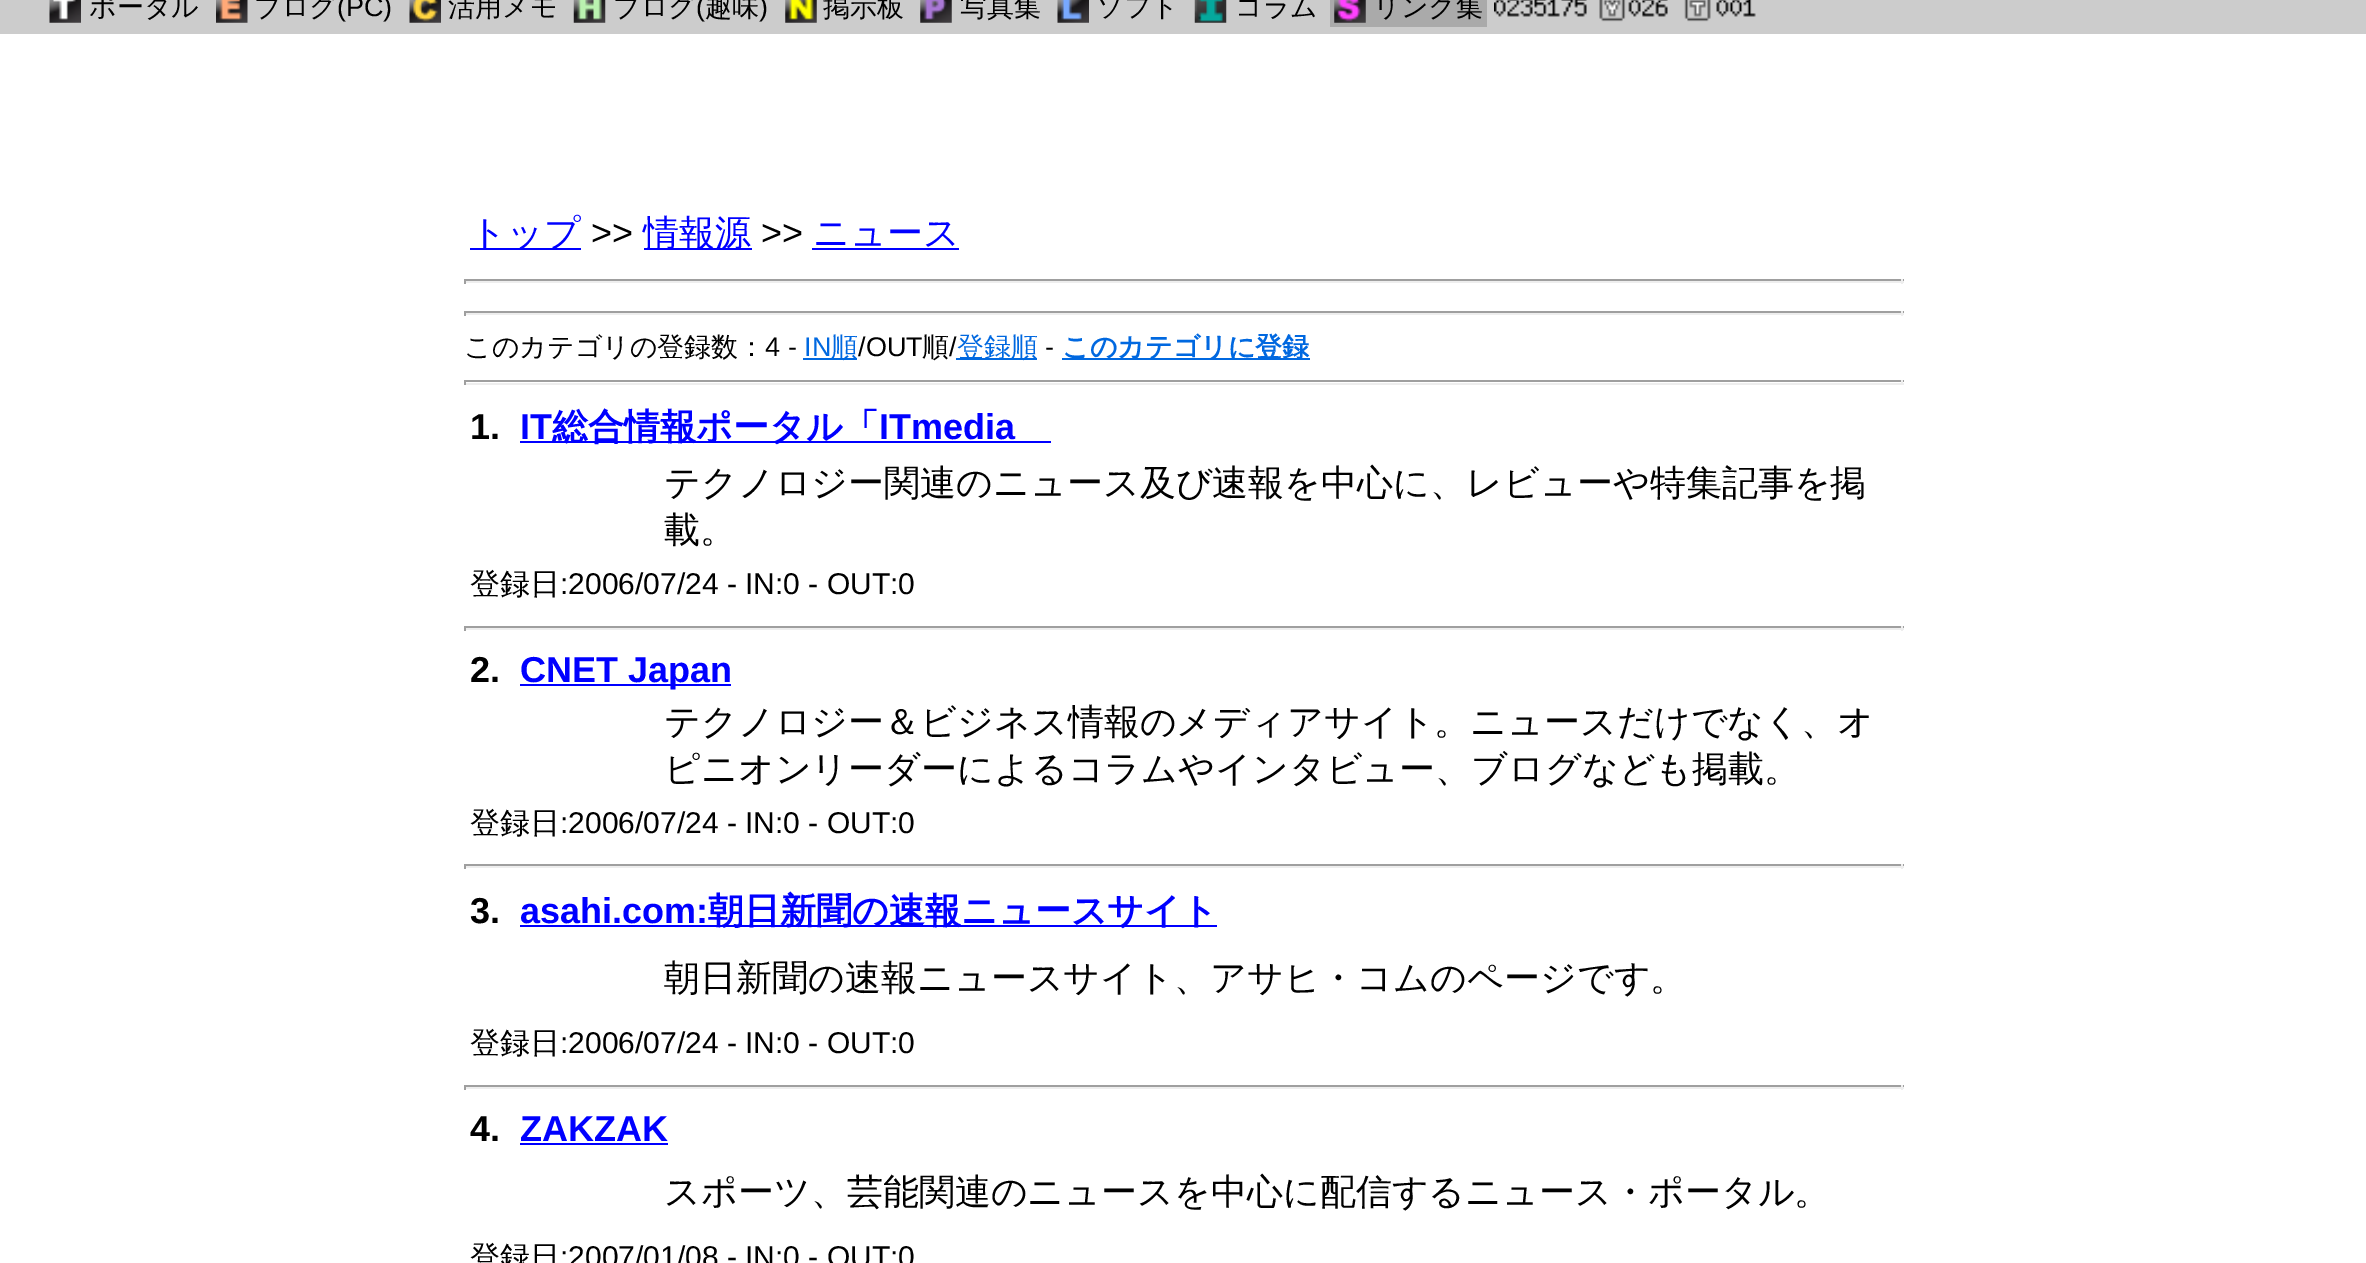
%!PS
<< /PageSize [2366 1263] >> setpagedevice
/picture { 5 dict begin { /h /w /y /x /name } { exch def } forall
  gsave x y translate w h scale
  w h 8 [w 0 0 h 0 0] name (r) file false 3 colorimage grestore end } def
0 1263 translate 1 -1 scale
4 setmiterlimit
1 setgray
0 0 2366 1263 rectfill
0.8 setgray
0 0 2366 34 rectfill
(img1.rgb) 49 0 32 23 picture
/WenQuanYiZenHei-Medium [27 0 0 -27 0 0] selectfont
0 setgray
89 16 moveto (ポータル) show
(img2.rgb) 216 0 32 23 picture
254 16 moveto (ブログ) show
/LiberationSans-Regular [27 0 0 -27 0 0] selectfont
337 16 moveto (\(PC\)) show
(img3.rgb) 409 0 32 23 picture
/WenQuanYiZenHei-Medium [27 0 0 -27 0 0] selectfont
448 16 moveto (活用メモ) show
(img4.rgb) 573 0 33 23 picture
613 16 moveto (ブログ) show
/LiberationSans-Regular [27 0 0 -27 0 0] selectfont
696 16 moveto (\() show
/WenQuanYiZenHei-Medium [27 0 0 -27 0 0] selectfont
705 16 moveto (趣味) show
/LiberationSans-Regular [27 0 0 -27 0 0] selectfont
759 16 moveto (\)) show
(img5.rgb) 785 0 32 23 picture
/WenQuanYiZenHei-Medium [27 0 0 -27 0 0] selectfont
823 16 moveto (掲示板) show
(img6.rgb) 920 0 32 23 picture
960 16 moveto (写真集) show
(img7.rgb) 1057 0 32 23 picture
1096 16 moveto (ソフト) show
(img8.rgb) 1194 0 33 23 picture
1235 16 moveto (コラム) show
0.667 setgray
1330 0 157 27 rectfill
(img9.rgb) 1334 0 32 23 picture
0 setgray
1373 16 moveto (リンク集) show
(img10.rgb) 1494 0 262 22 picture
0 0 1 setrgbcolor
470 248 111 2 rectfill
/WenQuanYiZenHei-Medium [36 0 0 -36 0 0] selectfont
470 245 moveto (トップ) show
/LiberationSans-Regular [36 0 0 -36 0 0] selectfont
0 setgray
591 245 moveto (>>) show
0 0 1 setrgbcolor
644 248 108 2 rectfill
/WenQuanYiZenHei-Medium [36 0 0 -36 0 0] selectfont
643 245 moveto (情報源) show
/LiberationSans-Regular [36 0 0 -36 0 0] selectfont
0 setgray
761 245 moveto (>>) show
/WenQuanYiZenHei-Medium [36 0 0 -36 0 0] selectfont
0 0 1 setrgbcolor
813 245 moveto (ニュース) show
812 248 147 2 rectfill
0.624 setgray
464 279 1440 2 rectfill
0.933 setgray
1901 279 2 5 rectfill
464 281 1440 2 rectfill
0.624 setgray
464 279 2 5 rectfill
464 311 1440 2 rectfill
0.933 setgray
1901 311 2 5 rectfill
464 313 1440 2 rectfill
0.624 setgray
464 311 2 5 rectfill
/WenQuanYiZenHei-Medium [27 0 0 -27 0 0] selectfont
0 setgray
464 356 moveto (このカテゴリの登録数：) show
/LiberationSans-Regular [27 0 0 -27 0 0] selectfont
765 356 moveto (4 -) show
0 0.408 0.878 setrgbcolor
804 356 moveto (IN) show
803 358 54 2 rectfill
/WenQuanYiZenHei-Medium [27 0 0 -27 0 0] selectfont
831 356 moveto (順) show
/LiberationSans-Regular [27 0 0 -27 0 0] selectfont
0 setgray
858 356 moveto (/OUT) show
/WenQuanYiZenHei-Medium [27 0 0 -27 0 0] selectfont
922 356 moveto (順) show
/LiberationSans-Regular [27 0 0 -27 0 0] selectfont
949 356 moveto (/) show
0 0.408 0.878 setrgbcolor
956 358 81 2 rectfill
/WenQuanYiZenHei-Medium [27 0 0 -27 0 0] selectfont
957 356 moveto (登録順) show
/LiberationSans-Regular [27 0 0 -27 0 0] selectfont
0 setgray
1045 356 moveto (-) show
0 0.408 0.878 setrgbcolor
1062 358 248 2 rectfill
/WenQuanYiZenHei-Bold [27 0 0 -27 0 0] selectfont
1062 356 moveto (このカテゴリに登録) show
0.624 setgray
464 380 1440 2 rectfill
0.933 setgray
1901 380 2 5 rectfill
464 383 1440 2 rectfill
0.624 setgray
464 380 2 5 rectfill
/LiberationSans-Bold [36 0 0 -36 0 0] selectfont
0 setgray
470 439 moveto (1.) show
0 0 1 setrgbcolor
520 439 moveto (IT) show
520 441 531 2 rectfill
/WenQuanYiZenHei-Bold [36 0 0 -36 0 0] selectfont
552 439 moveto (総合情報ポータル「) show
/LiberationSans-Bold [36 0 0 -36 0 0] selectfont
879 439 moveto (ITmedia) show
/WenQuanYiZenHei-Medium [36 0 0 -36 0 0] selectfont
0 setgray
664 495 moveto (テクノロジー関連のニュース及び速報を中心に、レビューや特集記事を掲) show
664 542 moveto (載。) show
/WenQuanYiZenHei-Medium [30 0 0 -30 0 0] selectfont
470 594 moveto (登録日) show
/LiberationSans-Regular [30 0 0 -30 0 0] selectfont
560 594 moveto (:2006/07/24 - IN:0 - OUT:0) show
0.624 setgray
464 626 1440 2 rectfill
0.933 setgray
1901 626 2 5 rectfill
464 628 1440 2 rectfill
0.624 setgray
464 626 2 5 rectfill
/LiberationSans-Bold [36 0 0 -36 0 0] selectfont
0 setgray
470 682 moveto (2.) show
0 0 1 setrgbcolor
520 684 211 2 rectfill
520 682 moveto (CNET Japan) show
/WenQuanYiZenHei-Medium [36 0 0 -36 0 0] selectfont
0 setgray
664 734 moveto (テクノロジー＆ビジネス情報のメディアサイト。ニュースだけでなく、オ) show
664 781 moveto (ピニオンリーダーによるコラムやインタビュー、ブログなども掲載。) show
/WenQuanYiZenHei-Medium [30 0 0 -30 0 0] selectfont
470 833 moveto (登録日) show
/LiberationSans-Regular [30 0 0 -30 0 0] selectfont
560 833 moveto (:2006/07/24 - IN:0 - OUT:0) show
0.624 setgray
464 864 1440 2 rectfill
0.933 setgray
1901 864 2 5 rectfill
464 866 1440 2 rectfill
0.624 setgray
464 864 2 5 rectfill
/LiberationSans-Bold [36 0 0 -36 0 0] selectfont
0 setgray
470 923 moveto (3.) show
0 0 1 setrgbcolor
520 923 moveto (asahi.com:) show
520 925 697 2 rectfill
/WenQuanYiZenHei-Bold [36 0 0 -36 0 0] selectfont
708 923 moveto (朝日新聞の速報ニュースサイト) show
/WenQuanYiZenHei-Medium [36 0 0 -36 0 0] selectfont
0 setgray
664 990 moveto (朝日新聞の速報ニュースサイト、アサヒ・コムのページです。) show
/WenQuanYiZenHei-Medium [30 0 0 -30 0 0] selectfont
470 1053 moveto (登録日) show
/LiberationSans-Regular [30 0 0 -30 0 0] selectfont
560 1053 moveto (:2006/07/24 - IN:0 - OUT:0) show
0.624 setgray
464 1085 1440 2 rectfill
0.933 setgray
1901 1085 2 5 rectfill
464 1087 1440 2 rectfill
0.624 setgray
464 1085 2 5 rectfill
/LiberationSans-Bold [36 0 0 -36 0 0] selectfont
0 setgray
470 1141 moveto (4.) show
0 0 1 setrgbcolor
520 1141 moveto (ZAKZAK) show
520 1143 148 2 rectfill
/WenQuanYiZenHei-Medium [36 0 0 -36 0 0] selectfont
0 setgray
664 1204 moveto (スポーツ、芸能関連のニュースを中心に配信するニュース・ポータル。) show
/WenQuanYiZenHei-Medium [30 0 0 -30 0 0] selectfont
470 1267 moveto (登録日) show
/LiberationSans-Regular [30 0 0 -30 0 0] selectfont
560 1267 moveto (:2007/01/08 - IN:0 - OUT:0) show
showpage
